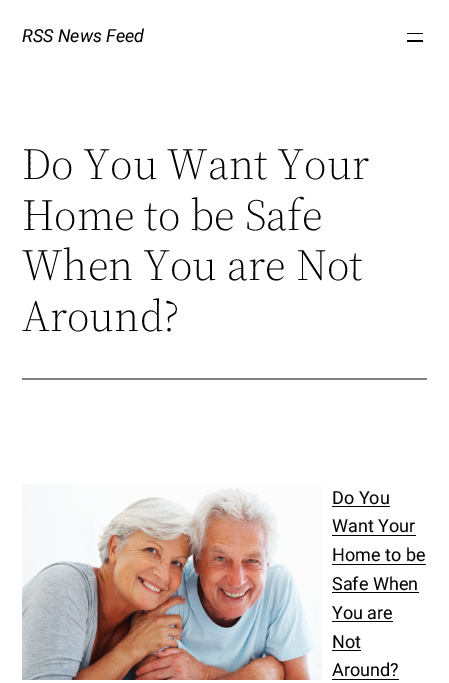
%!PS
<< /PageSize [449 683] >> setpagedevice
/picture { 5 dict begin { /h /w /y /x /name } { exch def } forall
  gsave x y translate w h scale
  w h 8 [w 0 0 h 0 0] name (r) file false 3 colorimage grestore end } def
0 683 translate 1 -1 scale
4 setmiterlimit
1 setgray
0 0 449 683 rectfill
/Roboto-Italic [18 0 0 -18 0 0] selectfont
0 setgray
22 42 moveto (RSS News Feed) show
407 33 16 1 rectfill
407 40 16 2 rectfill
/SourceSerif4-Light [44 0 0 -44 0 0] selectfont
22 179 moveto (Do You Want Your) show
22 230 moveto (Home to be Safe) show
22 280 moveto (When You are Not) show
22 331 moveto (Around?) show
0.502 setgray
22 378 405 2 rectfill
(img1.rgb) 22 484 300 196 picture
/Roboto-Regular [18 0 0 -18 0 0] selectfont
0 setgray
332 504 moveto (Do You) show
332 506 58 1 rectfill
332 532 moveto (Want Your) show
332 535 84 1 rectfill
332 561 moveto (Home to be) show
332 564 94 1 rectfill
332 590 moveto (Safe When) show
332 592 87 1 rectfill
332 619 moveto (You are) show
332 621 61 1 rectfill
332 648 moveto (Not) show
332 650 29 1 rectfill
332 676 moveto (Around?) show
332 679 67 1 rectfill
showpage
